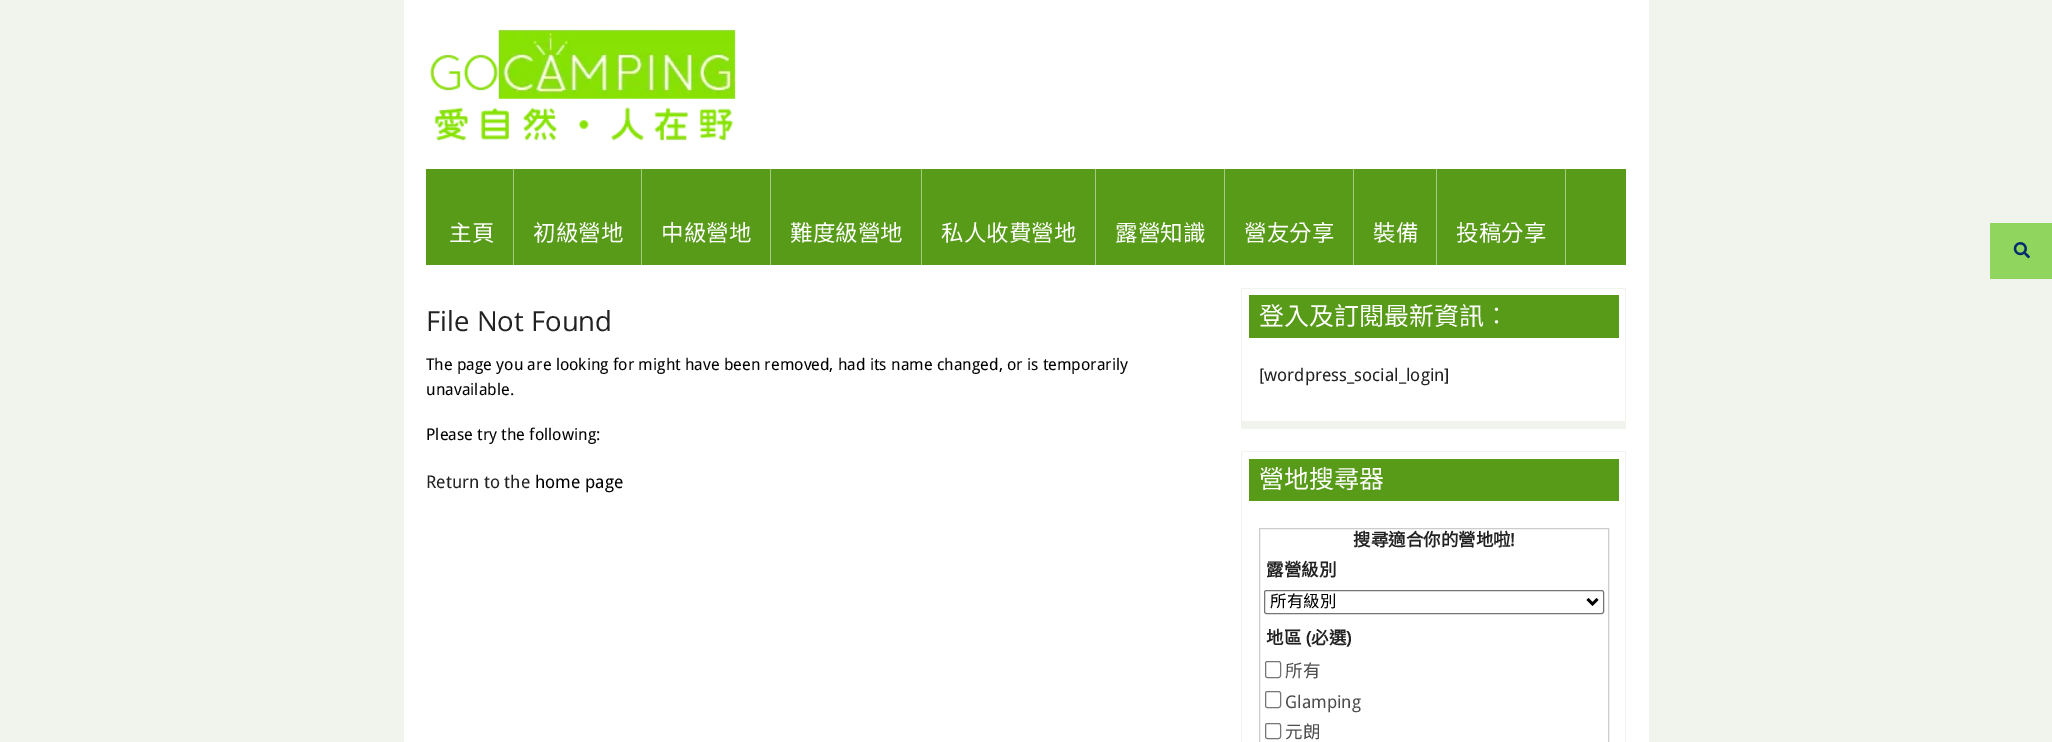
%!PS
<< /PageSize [2052 742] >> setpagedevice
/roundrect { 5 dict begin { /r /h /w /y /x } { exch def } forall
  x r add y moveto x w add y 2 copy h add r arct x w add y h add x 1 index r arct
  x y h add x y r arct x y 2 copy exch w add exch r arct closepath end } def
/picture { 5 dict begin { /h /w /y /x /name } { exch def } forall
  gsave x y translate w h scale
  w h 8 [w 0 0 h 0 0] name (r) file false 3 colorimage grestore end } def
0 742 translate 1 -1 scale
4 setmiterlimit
0.945 0.957 0.929 setrgbcolor
0 0 2052 742 rectfill
1 setgray
404 0 1245 742 rectfill
(img1.rgb) 430 29 306 112 picture
0.341 0.608 0.094 setrgbcolor
426 169 1200 96 rectfill
0.651 0.792 0.522 setrgbcolor
513 169 1 96 rectfill
/NotoSansCJKTC-Regular [22.5 0 0 -22.5 0 0] selectfont
1 setgray
449 241 moveto (主頁) show
0.651 0.792 0.522 setrgbcolor
641 169 1 96 rectfill
1 setgray
533 241 moveto (初級營地) show
0.651 0.792 0.522 setrgbcolor
770 169 1 96 rectfill
1 setgray
661 241 moveto (中級營地) show
0.651 0.792 0.522 setrgbcolor
921 169 1 96 rectfill
1 setgray
790 241 moveto (難度級營地) show
0.651 0.792 0.522 setrgbcolor
1095 169 1 96 rectfill
1 setgray
941 241 moveto (私人收費營地) show
0.651 0.792 0.522 setrgbcolor
1224 169 1 96 rectfill
1 setgray
1115 241 moveto (露營知識) show
0.651 0.792 0.522 setrgbcolor
1353 169 1 96 rectfill
1 setgray
1244 241 moveto (營友分享) show
0.651 0.792 0.522 setrgbcolor
1436 169 1 96 rectfill
1 setgray
1373 241 moveto (裝備) show
0.651 0.792 0.522 setrgbcolor
1565 169 1 96 rectfill
1 setgray
1456 241 moveto (投稿分享) show
/OpenSans-Regular [27.5 0 0 -27.5 0 0] selectfont
0.133 setgray
426 331 moveto (File Not Found) show
/DroidSans-Regular [16.25 0 0 -16.25 0 0] selectfont
0 setgray
426 370 moveto (The page you are looking for might have been removed, had its name changed, or is temporarily) show
426 395 moveto (unavailable.) show
426 440 moveto (Please try the following:) show
/DroidSans-Regular [17.5 0 0 -17.5 0 0] selectfont
0.133 setgray
426 488 moveto (Return to the) show
0 setgray
535 488 moveto (home page) show
0.945 0.957 0.929 setrgbcolor
1241 288 385 1 rectfill
1625 288 1 141 rectfill
1241 421 385 8 rectfill
1241 288 1 141 rectfill
0.341 0.608 0.094 setrgbcolor
1249 295 370 43 rectfill
/NotoSansCJKTC-Regular [25 0 0 -25 0 0] selectfont
1 setgray
1259 325 moveto (登入及訂閱最新資訊︰) show
/DroidSans-Regular [17.5 0 0 -17.5 0 0] selectfont
0.133 setgray
1259 381 moveto ([wordpress_social_login]) show
0.945 0.957 0.929 setrgbcolor
1241 451 385 1 rectfill
1625 451 1 291 rectfill
1241 451 1 291 rectfill
0.341 0.608 0.094 setrgbcolor
1249 459 370 42 rectfill
/NotoSansCJKTC-Regular [25 0 0 -25 0 0] selectfont
1 setgray
1259 488 moveto (營地搜尋器) show
0.8 setgray
1259.5 528.5 349 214 rectstroke
/NotoSansCJKTC-Bold [17.5 0 0 -17.5 0 0] selectfont
0.133 setgray
1353 546 moveto (搜尋適合你的營地啦) show
/DroidSans-Bold [17.5 0 0 -17.5 0 0] selectfont
1510 546 moveto (!) show
/NotoSansCJKTC-Bold [17.5 0 0 -17.5 0 0] selectfont
1266 576 moveto (露營級別) show
0.463 setgray
1264.5 590.5 339 23 2 roundrect stroke
0 setgray
2.5 setlinewidth
newpath 1587.5 599 moveto 1592.5 604 lineto 1597.5 599 lineto stroke
/NotoSansCJKTC-Regular [16.5 0 0 -16.5 0 0] selectfont
1270 607 moveto (所有級別) show
/NotoSansCJKTC-Bold [17.5 0 0 -17.5 0 0] selectfont
0.133 setgray
1266 644 moveto (地區) show
/DroidSans-Bold [17.5 0 0 -17.5 0 0] selectfont
1306 644 moveto (\() show
/NotoSansCJKTC-Bold [17.5 0 0 -17.5 0 0] selectfont
1311 644 moveto (必選) show
/DroidSans-Bold [17.5 0 0 -17.5 0 0] selectfont
1346 644 moveto (\)) show
0.463 setgray
1 setlinewidth
1265.5 661.5 15 16 2 roundrect stroke
/NotoSansCJKTC-Regular [17.5 0 0 -17.5 0 0] selectfont
0.302 setgray
1285 677 moveto (所有) show
0.463 setgray
1265.5 691.5 15 16 2 roundrect stroke
/DroidSans-Regular [17.5 0 0 -17.5 0 0] selectfont
0.302 setgray
1285 708 moveto (Glamping) show
0.463 setgray
1265.5 723.5 15 15 2 roundrect stroke
/NotoSansCJKTC-Regular [17.5 0 0 -17.5 0 0] selectfont
0.302 setgray
1285 738 moveto (元朗) show
0.565 0.839 0.369 setrgbcolor
1990 223 62 56 rectfill
(img2.rgb) 2013 242 17 17 picture
showpage
